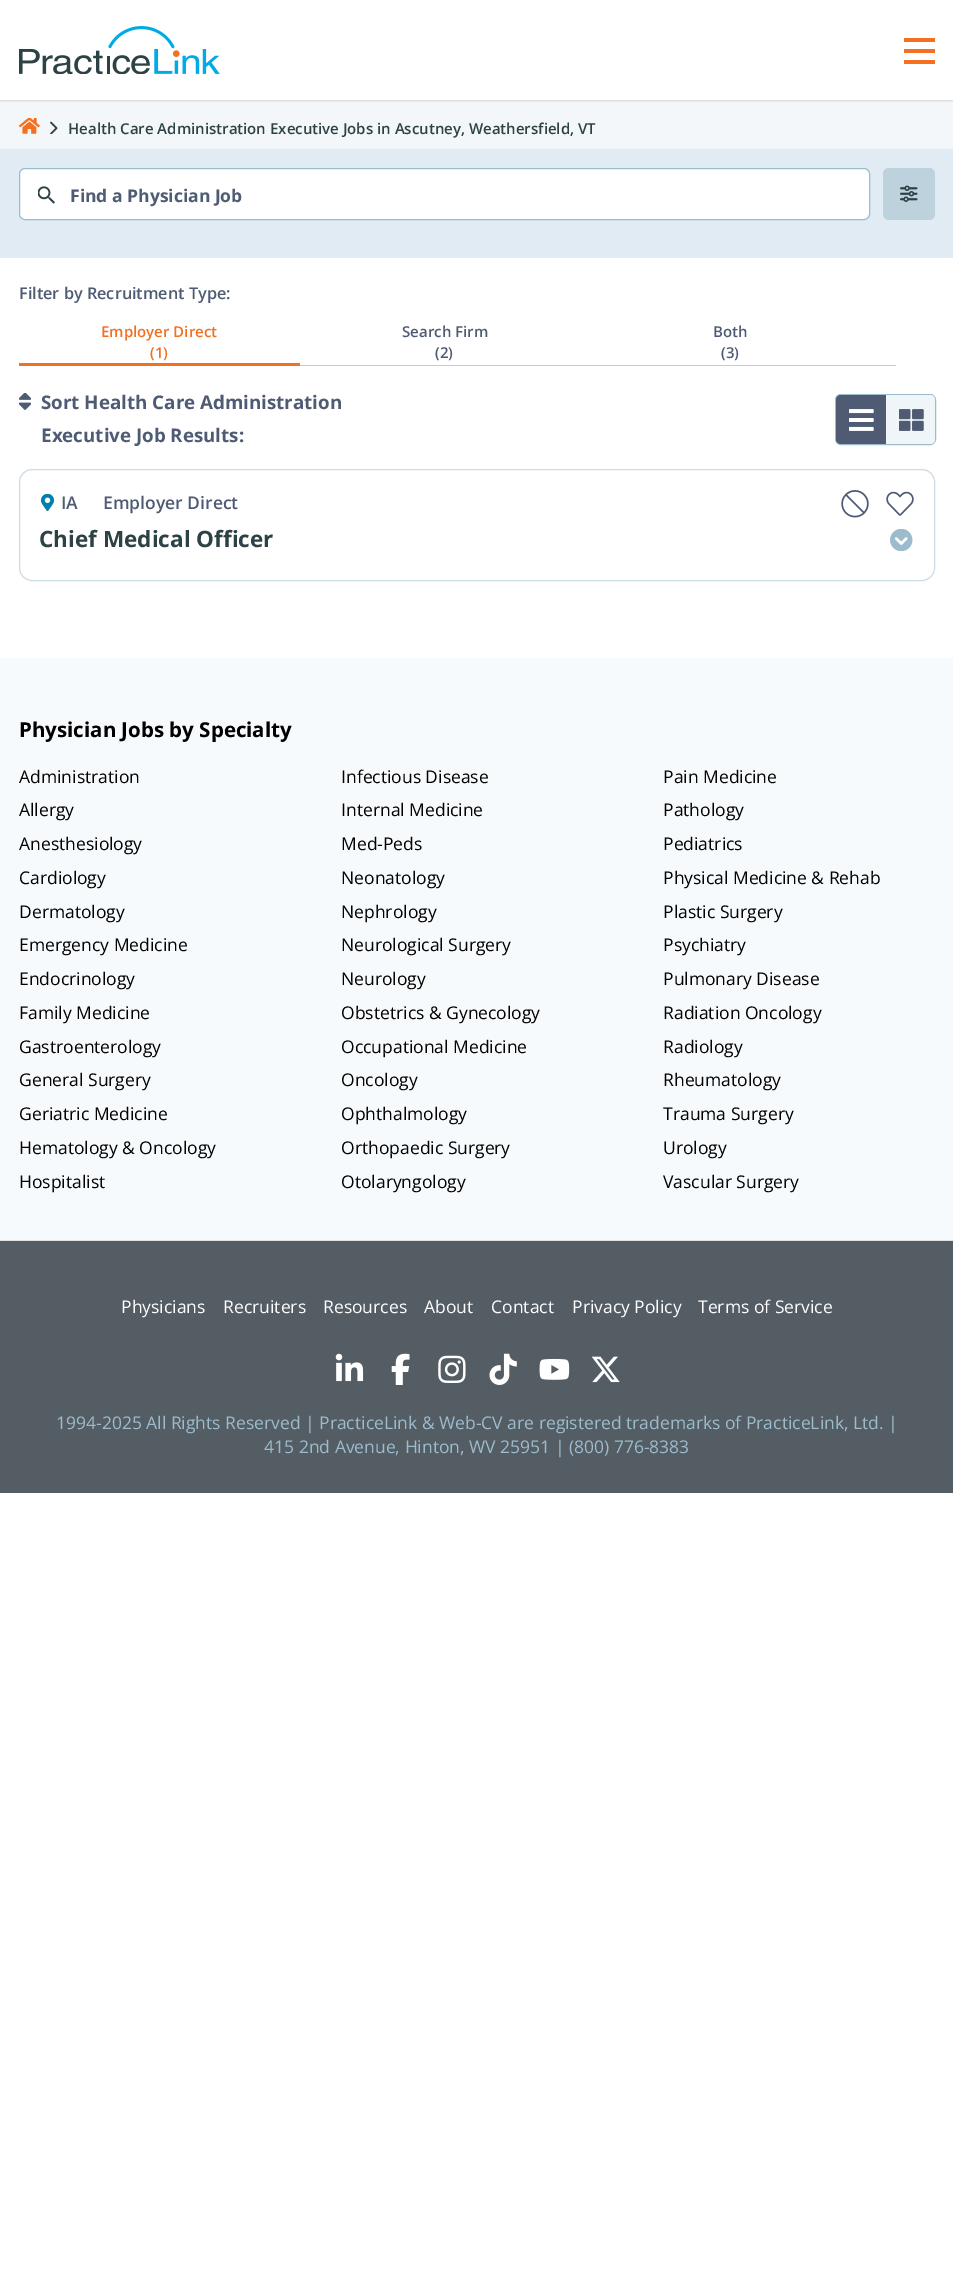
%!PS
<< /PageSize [953 2282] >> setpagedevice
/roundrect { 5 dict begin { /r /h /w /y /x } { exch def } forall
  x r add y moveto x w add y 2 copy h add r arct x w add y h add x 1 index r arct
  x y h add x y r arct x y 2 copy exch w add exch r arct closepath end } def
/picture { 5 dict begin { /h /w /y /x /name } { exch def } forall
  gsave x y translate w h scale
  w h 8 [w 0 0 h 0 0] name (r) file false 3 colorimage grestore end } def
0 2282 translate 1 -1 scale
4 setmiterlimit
1 setgray
0 0 953 2282 rectfill
0.875 setgray
0 100 953 1 rectfill
(img1.rgb) 19 26 201 48 picture
0.953 0.439 0.129 setrgbcolor
904 38 31 4 rectfill
904 49 31 4 rectfill
904 60 31 4 rectfill
0.957 0.969 0.976 setrgbcolor
0 102 953 47 rectfill
0.906 setgray
0 101 953 1 rectfill
(img2.rgb) 19 118 21 16 picture
(img3.rgb) 50 121 8 13 picture
/OpenSans-SemiBold [15 0 0 -15 0 0] selectfont
0.176 0.259 0.271 setrgbcolor
68 134 moveto (Health Care Administration Executive Jobs in Ascutney, Weathersfield, VT) show
0.882 0.922 0.957 setrgbcolor
0 149 953 109 rectfill
1 setgray
19.5 168.5 850 51 5.5 roundrect gsave fill grestore
0.616 0.737 0.8 setrgbcolor
stroke
(img4.rgb) 38 186 17 18 picture
/OpenSans-Bold [17.5 0 0 -17.5 0 0] selectfont
0.306 0.357 0.451 setrgbcolor
70 202 moveto (Find a Physician Job) show
0.741 0.824 0.867 setrgbcolor
883 168 52 52 6 roundrect fill
(img5.rgb) 900 185 18 17 picture
0.8 setgray
300 365 596 1 rectfill
/OpenSans-SemiBold [16.25 0 0 -16.25 0 0] selectfont
0.306 0.357 0.451 setrgbcolor
19 299 moveto (Filter by Recruitment Type:) show
0.953 0.439 0.129 setrgbcolor
19 363 281 3 rectfill
/OpenSans-SemiBold [15 0 0 -15 0 0] selectfont
101 337 moveto (Employer Direct) show
150 358 moveto (\(1\)) show
0.306 0.357 0.451 setrgbcolor
402 337 moveto (Search Firm) show
435 358 moveto (\(2\)) show
713 337 moveto (Both) show
721 358 moveto (\(3\)) show
(img6.rgb) 19 393 12 17 picture
/OpenSans-Bold [18.75 0 0 -18.75 0 0] selectfont
41 409 moveto (Sort Health Care Administration) show
41 442 moveto (Executive Job Results:) show
0.612 0.737 0.804 setrgbcolor
835.5 394.5 100 50 5.5 roundrect stroke
0.306 0.357 0.451 setrgbcolor
newpath 841 395 moveto 886 395 lineto 886 444 lineto 841 444 lineto 838 444 836 442 836 439 curveto 836 400 lineto 836 397 838 395 841 395 curveto closepath fill
(img7.rgb) 849 409 25 22 picture
0.941 0.961 0.973 setrgbcolor
newpath 886 395 moveto 930 395 lineto 933 395 935 397 935 400 curveto 935 439 lineto 935 442 933 444 930 444 curveto 886 444 lineto closepath fill
(img8.rgb) 899 409 25 22 picture
0.804 0.867 0.902 setrgbcolor
19.5 469.5 915 111 12.5 roundrect stroke
(img9.rgb) 40 494 15 17 picture
/OpenSans-SemiBold [17.5 0 0 -17.5 0 0] selectfont
0.306 0.357 0.451 setrgbcolor
61 509 moveto (IA) show
103 509 moveto (Employer Direct) show
/OpenSans-Bold [22.5 0 0 -22.5 0 0] selectfont
0.176 0.259 0.271 setrgbcolor
39 547 moveto (Chief Medical Officer) show
(img10.rgb) 890 529 23 22 picture
(img11.rgb) 841 490 28 28 picture
(img12.rgb) 886 491 28 25 picture
0.969 0.98 0.988 setrgbcolor
0 658 953 582 rectfill
/OpenSans-Bold [20.5 0 0 -20.5 0 0] selectfont
0 setgray
19 737 moveto (Physician Jobs by Specialty) show
/OpenSans-Regular [17.5 0 0 -17.5 0 0] selectfont
19 783 moveto (Administration) show
341 783 moveto (Infectious Disease) show
663 783 moveto (Pain Medicine) show
19 816 moveto (Allergy) show
341 816 moveto (Internal Medicine) show
663 816 moveto (Pathology) show
19 850 moveto (Anesthesiology) show
341 850 moveto (Med-Peds) show
663 850 moveto (Pediatrics) show
19 884 moveto (Cardiology) show
341 884 moveto (Neonatology) show
663 884 moveto (Physical Medicine & Rehab) show
19 918 moveto (Dermatology) show
341 918 moveto (Nephrology) show
663 918 moveto (Plastic Surgery) show
19 951 moveto (Emergency Medicine) show
341 951 moveto (Neurological Surgery) show
663 951 moveto (Psychiatry) show
19 985 moveto (Endocrinology) show
341 985 moveto (Neurology) show
663 985 moveto (Pulmonary Disease) show
19 1019 moveto (Family Medicine) show
341 1019 moveto (Obstetrics & Gynecology) show
663 1019 moveto (Radiation Oncology) show
19 1053 moveto (Gastroenterology) show
341 1053 moveto (Occupational Medicine) show
663 1053 moveto (Radiology) show
19 1086 moveto (General Surgery) show
341 1086 moveto (Oncology) show
663 1086 moveto (Rheumatology) show
19 1120 moveto (Geriatric Medicine) show
341 1120 moveto (Ophthalmology) show
663 1120 moveto (Trauma Surgery) show
19 1154 moveto (Hematology & Oncology) show
341 1154 moveto (Orthopaedic Surgery) show
663 1154 moveto (Urology) show
19 1188 moveto (Hospitalist) show
341 1188 moveto (Otolaryngology) show
663 1188 moveto (Vascular Surgery) show
0.329 0.361 0.392 setrgbcolor
0 1241 953 252 rectfill
0.882 setgray
0 1240 953 1 rectfill
1 setgray
121 1313 moveto (Physicians) show
223 1313 moveto (Recruiters) show
323 1313 moveto (Resources) show
424 1313 moveto (About) show
491 1313 moveto (Contact) show
572 1313 moveto (Privacy Policy) show
698 1313 moveto (Terms of Service) show
(img13.rgb) 335 1353 29 29 picture
(img14.rgb) 391 1353 19 32 picture
(img15.rgb) 438 1355 28 29 picture
(img16.rgb) 489 1353 28 32 picture
(img17.rgb) 539 1358 31 22 picture
(img18.rgb) 591 1356 29 27 picture
0.612 0.737 0.804 setrgbcolor
56 1429 moveto (1994-2025 All Rights Reserved | PracticeLink & Web-CV are registered trademarks of PracticeLink, Ltd. |) show
264 1453 moveto (415 2nd Avenue, Hinton, WV 25951 | \(800\) 776-8383) show
showpage
